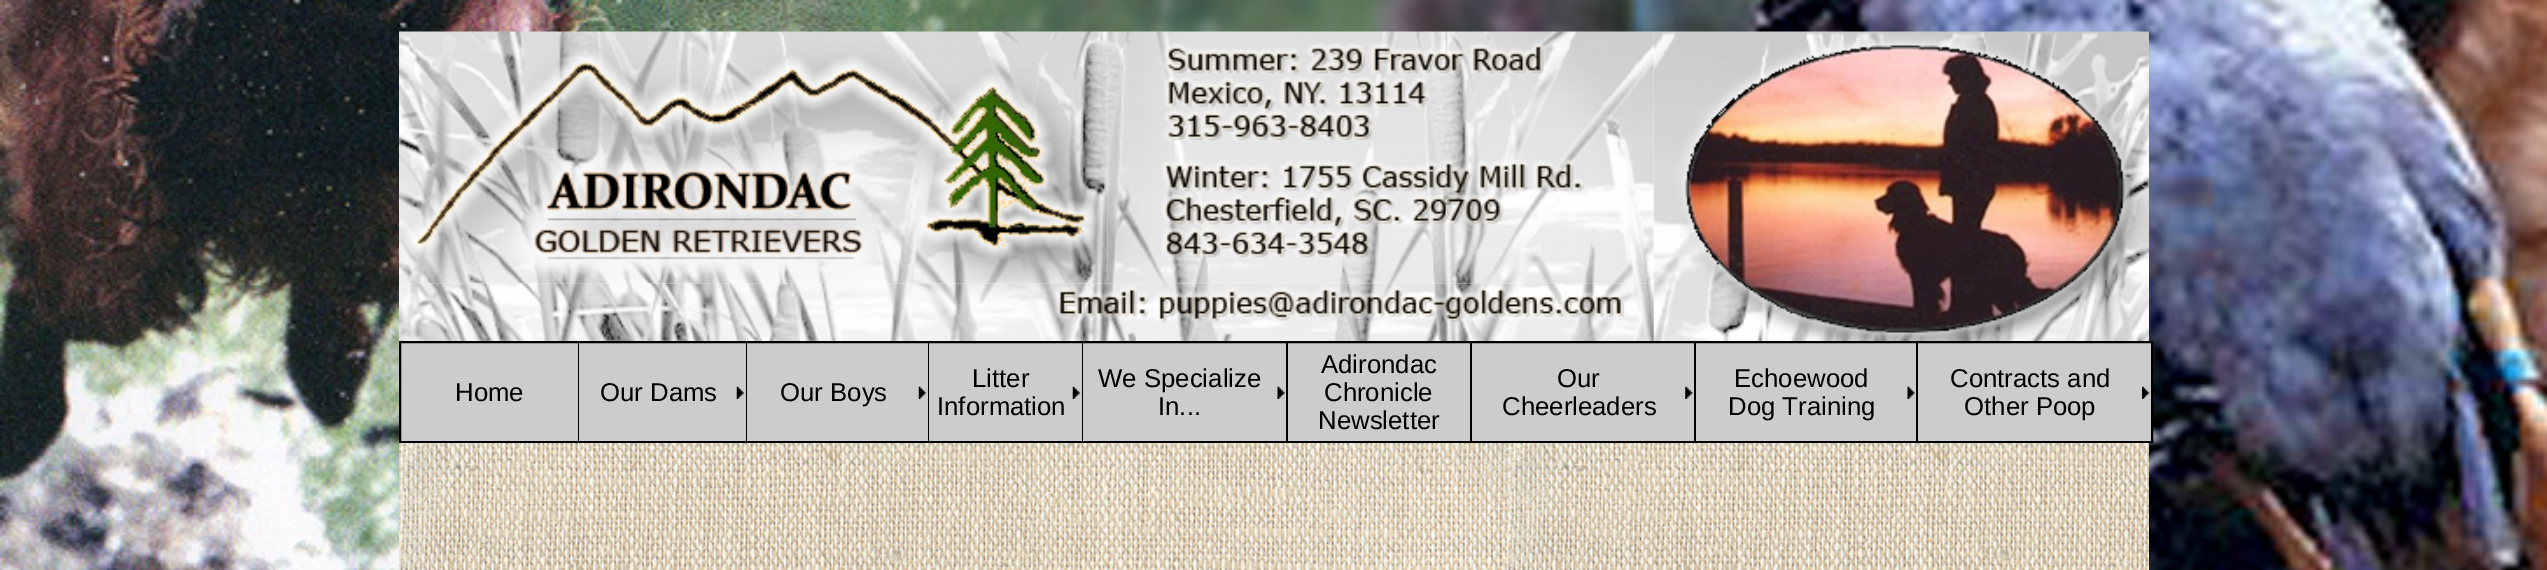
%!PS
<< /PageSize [2547 570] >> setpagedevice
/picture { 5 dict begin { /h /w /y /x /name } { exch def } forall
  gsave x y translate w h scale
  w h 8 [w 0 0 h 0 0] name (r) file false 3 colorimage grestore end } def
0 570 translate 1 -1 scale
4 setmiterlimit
1 setgray
0 0 2547 570 rectfill
(img1.rgb) 0 0 2547 570 picture
(img2.rgb) 399 31 709 253 picture
(img3.rgb) 1107 31 547 253 picture
(img4.rgb) 1653 31 496 310 picture
(img5.rgb) 399 283 641 58 picture
(img6.rgb) 1039 283 615 58 picture
0.8 setgray
newpath 400 342 moveto 2152 342 lineto 2152 442 lineto 400 442 lineto closepath gsave fill grestore
0 setgray
2 setlinewidth
stroke
/LiberationSans-Regular [25.75 0 0 -25.75 0 0] selectfont
455 401 moveto (Home) show
578 343 1 98 rectfill
600 401 moveto (Our Dams) show
(img7.rgb) 736 386 9 13 picture
746 343 1 98 rectfill
780 401 moveto (Our Boys) show
(img7.rgb) 918 386 9 13 picture
928 343 1 98 rectfill
972 387 moveto (Litter) show
937 415 moveto (Information) show
(img8.rgb) 1072 386 9 13 picture
1082 343 1 98 rectfill
1098 387 moveto (We Specialize) show
1158 415 moveto (In...) show
(img9.rgb) 1277 386 8 13 picture
1286 343 2 98 rectfill
1321 373 moveto (Adirondac) show
1324 401 moveto (Chronicle) show
1318 429 moveto (Newsletter) show
1470 343 2 98 rectfill
1557 387 moveto (Our) show
1502 415 moveto (Cheerleaders) show
(img10.rgb) 1685 386 8 13 picture
1694 343 2 98 rectfill
1734 387 moveto (Echoewood) show
1728 415 moveto (Dog Training) show
(img11.rgb) 1907 386 8 13 picture
1916 343 2 98 rectfill
1950 387 moveto (Contracts and) show
1964 415 moveto (Other Poop) show
(img12.rgb) 2142 386 8 13 picture
(img13.rgb) 399 443 1750 127 picture
showpage
